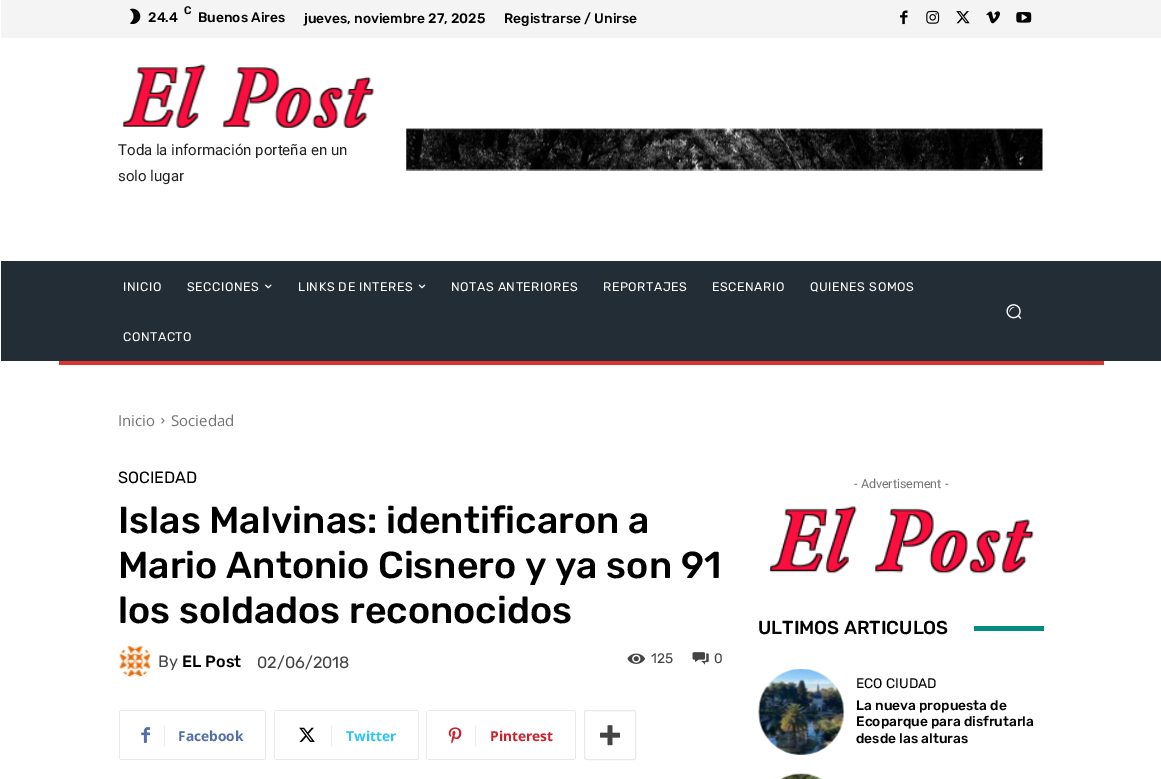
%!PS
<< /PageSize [1161 779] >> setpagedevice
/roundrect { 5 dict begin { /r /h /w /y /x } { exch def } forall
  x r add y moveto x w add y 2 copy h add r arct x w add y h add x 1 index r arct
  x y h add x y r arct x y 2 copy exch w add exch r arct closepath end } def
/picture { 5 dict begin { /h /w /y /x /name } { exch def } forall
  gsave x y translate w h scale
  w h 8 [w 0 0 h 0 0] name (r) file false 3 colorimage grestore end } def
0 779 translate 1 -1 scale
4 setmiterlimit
1 setgray
0 0 1161 779 rectfill
0.957 setgray
1 0 1160 38 rectfill
(img1.rgb) 129 8 12 17 picture
/Rubik-Medium [11 0 0 -11 0 0] selectfont
0 setgray
184 14 moveto (C) show
/Rubik-Medium [13.75 0 0 -13.75 0 0] selectfont
148 22 moveto (24.4) show
198 22 moveto (Buenos Aires) show
304 23 moveto (jueves, noviembre 27, 2025) show
504 23 moveto (Registrarse / Unirse) show
(img2.rgb) 900 10 8 15 picture
(img3.rgb) 926 10 14 14 picture
(img4.rgb) 956 11 14 13 picture
(img5.rgb) 986 11 14 13 picture
(img6.rgb) 1016 12 16 11 picture
(img7.rgb) 122 64 253 64 picture
/Roboto-Regular [15 0 0 -15 0 0] selectfont
0.133 setgray
118 155 moveto (Toda la información porteña en un) show
118 181 moveto (solo lugar) show
(img8.rgb) 406 128 637 43 picture
0.137 0.176 0.208 setrgbcolor
1 261 1160 100 rectfill
/Rubik-Regular [12.5 0 0 -12.5 0 0] selectfont
1 setgray
123 291 moveto 0.5 0 (INICIO) ashow
187 291 moveto 0.5 0 (SECCIONES) ashow
(img9.rgb) 265 284 7 5 picture
298 291 moveto 0.5 0 (LINKS DE INTERES) ashow
(img10.rgb) 418 284 8 5 picture
451 291 moveto 0.5 0 (NOTAS ANTERIORES) ashow
603 291 moveto 0.5 0 (REPORTAJES) ashow
712 291 moveto 0.5 0 (ESCENARIO) ashow
810 291 moveto 0.5 0 (QUIENES SOMOS) ashow
123 341 moveto 0.5 0 (CONTACTO) ashow
(img11.rgb) 1006 304 16 15 picture
0.867 0.2 0.2 setrgbcolor
59 361 1045 4 rectfill
/OpenSans-Regular [15 0 0 -15 0 0] selectfont
0.455 setgray
118 426 moveto (Inicio) show
(img12.rgb) 161 417 4 7 picture
171 426 moveto (Sociedad) show
/Rubik-Regular [16.25 0 0 -16.25 0 0] selectfont
0 setgray
118 483 moveto (SOCIEDAD) show
/Rubik-Medium [37.5 0 0 -37.5 0 0] selectfont
118 533 moveto (Islas Malvinas: identificaron a) show
118 578 moveto (Mario Antonio Cisnero y ya son 91) show
118 623 moveto (los soldados reconocidos) show
(img13.rgb) 119 646 32 31 picture
/Rubik-Regular [16.25 0 0 -16.25 0 0] selectfont
0.267 setgray
158 667 moveto (By) show
/Rubik-Medium [16.25 0 0 -16.25 0 0] selectfont
0 setgray
182 667 moveto (EL Post) show
/Rubik-Regular [16.25 0 0 -16.25 0 0] selectfont
0.267 setgray
257 668 moveto (02/06/2018) show
(img14.rgb) 627 653 18 11 picture
/Rubik-Regular [13.75 0 0 -13.75 0 0] selectfont
651 663 moveto (125) show
(img15.rgb) 692 652 17 13 picture
714 663 moveto (0) show
0.914 setgray
119 711 1 48 rectfill
(img16.rgb) 141 727 9 16 picture
120 710 145 1 rectfill
265 711 1 48 rectfill
120 759 145 1 rectfill
0.922 setgray
164 726 1 20 rectfill
/OpenSans-Bold [13.75 0 0 -13.75 0 0] selectfont
0.318 0.431 0.671 setrgbcolor
178 741 moveto (Facebook) show
0.914 setgray
274 711 1 48 rectfill
(img17.rgb) 299 727 16 15 picture
275 710 143 1 rectfill
418 711 1 48 rectfill
275 759 143 1 rectfill
0.922 setgray
331 726 1 20 rectfill
0.161 0.773 0.965 setrgbcolor
346 741 moveto (Twitter) show
0.914 setgray
426 711 1 48 rectfill
(img18.rgb) 448 727 14 17 picture
428 710 147 1 rectfill
575 711 1 48 rectfill
428 759 147 1 rectfill
0.922 setgray
475 726 1 20 rectfill
0.792 0.129 0.165 setrgbcolor
490 741 moveto (Pinterest) show
0.914 setgray
584.5 710.5 51 49 2 roundrect stroke
(img19.rgb) 600 725 20 21 picture
/Roboto-Regular [12.5 0 0 -12.5 0 0] selectfont
0.455 setgray
854 488 moveto (- Advertisement -) show
(img20.rgb) 769 506 265 68 picture
/Rubik-Medium [18.75 0 0 -18.75 0 0] selectfont
0 setgray
758 634 moveto (ULTIMOS ARTICULOS) show
0 0.553 0.498 setrgbcolor
974 626 70 5 rectfill
(img21.rgb) 758 669 87 87 picture
/Rubik-Regular [13.75 0 0 -13.75 0 0] selectfont
0 setgray
856 688 moveto (ECO CIUDAD) show
/Rubik-Medium [13.75 0 0 -13.75 0 0] selectfont
856 710 moveto (La nueva propuesta de) show
856 726 moveto (Ecoparque para disfrutarla) show
856 743 moveto (desde las alturas) show
(img22.rgb) 780 773 43 6 picture
showpage
